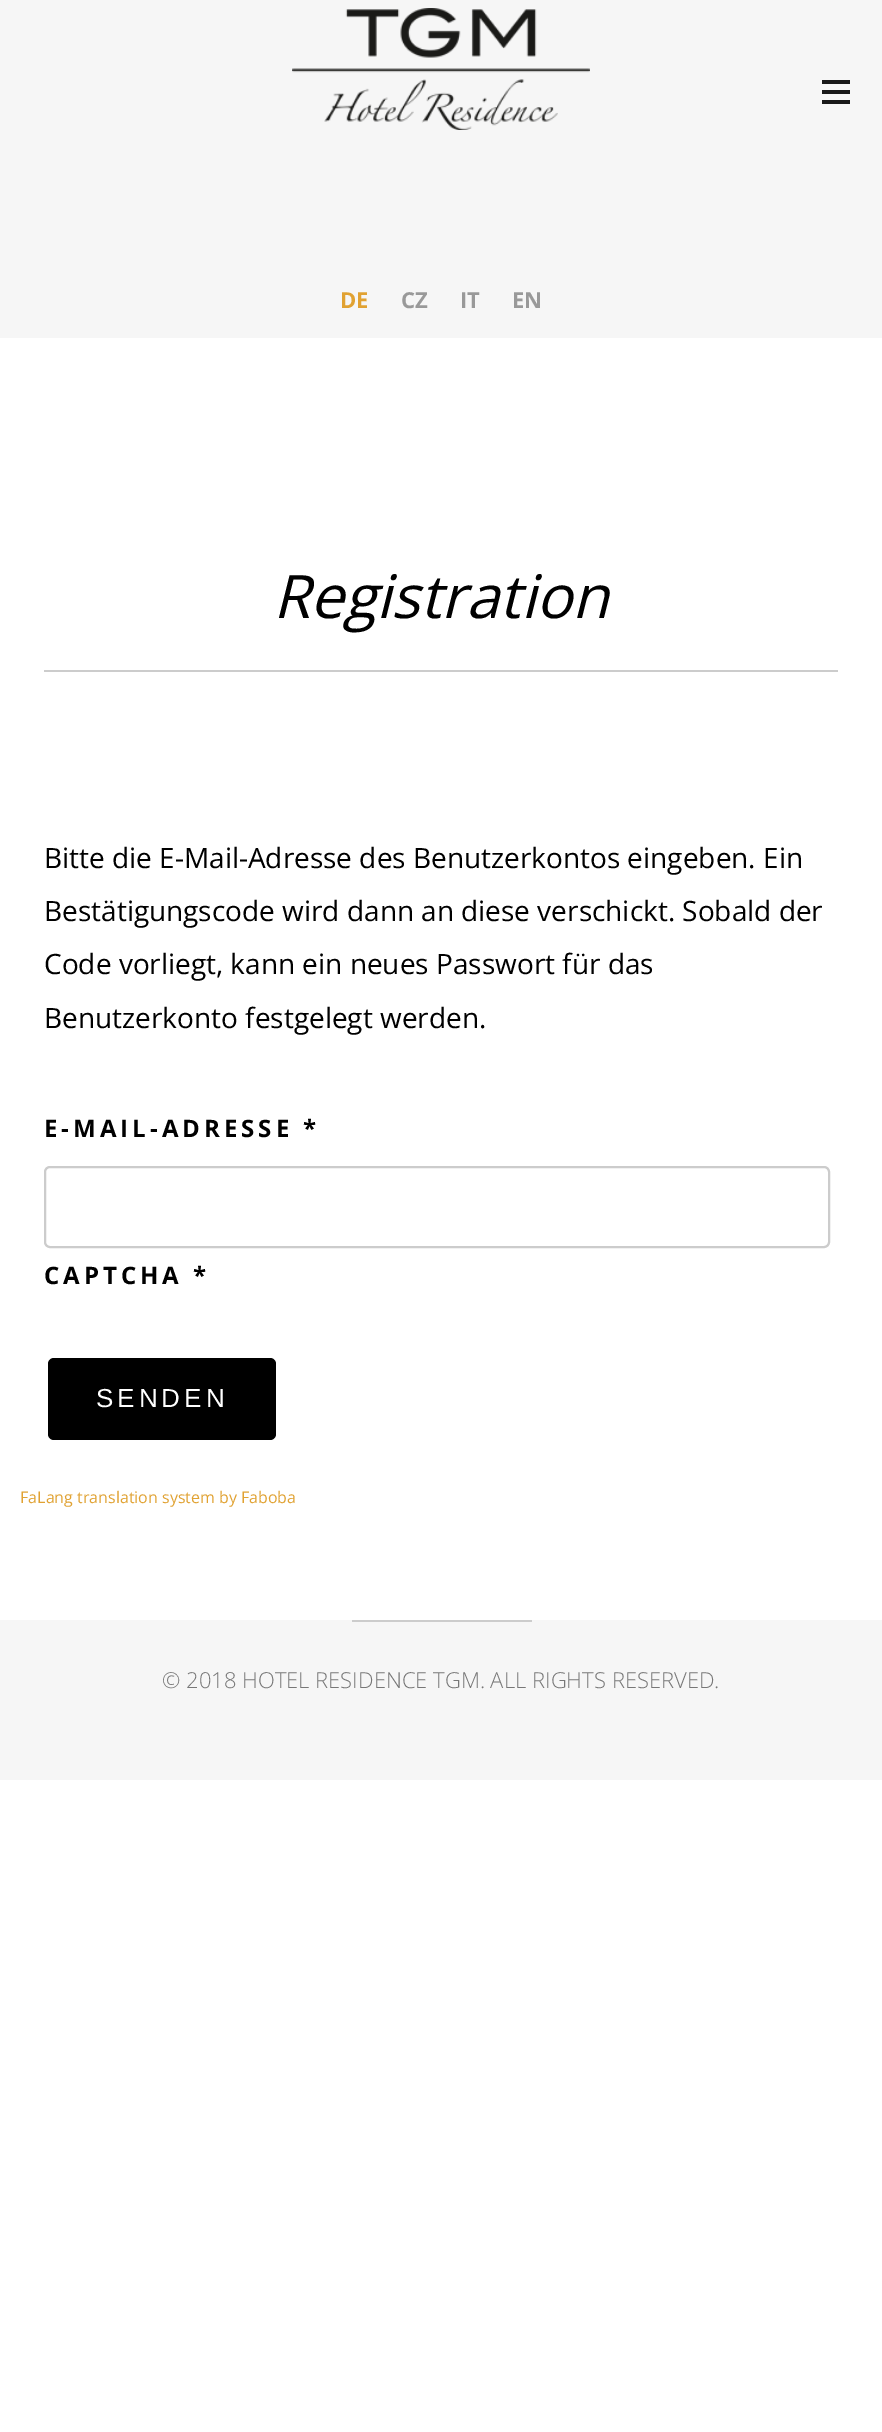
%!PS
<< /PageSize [882 2432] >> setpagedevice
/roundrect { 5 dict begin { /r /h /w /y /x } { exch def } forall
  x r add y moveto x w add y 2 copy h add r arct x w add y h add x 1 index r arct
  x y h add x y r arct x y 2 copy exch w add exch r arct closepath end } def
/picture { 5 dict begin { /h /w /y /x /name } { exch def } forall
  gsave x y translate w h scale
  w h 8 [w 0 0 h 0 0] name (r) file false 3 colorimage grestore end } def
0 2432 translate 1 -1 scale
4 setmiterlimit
1 setgray
0 0 882 2432 rectfill
0.965 setgray
0 0 882 338 rectfill
(img1.rgb) 292 8 298 122 picture
0.098 setgray
822 90 28 4 rectfill
822 80 28 4 rectfill
822 100 28 4 rectfill
/OpenSans-Bold [22 0 0 -22 0 0] selectfont
0.882 0.635 0.196 setrgbcolor
340 308 moveto (DE) show
0.6 setgray
401 308 moveto (CZ) show
460 308 moveto (IT) show
512 308 moveto (EN) show
0.8 setgray
44 670 794 2 rectfill
/OpenSans-Italic [60 0 0 -60 0 0] selectfont
0 setgray
273 618 moveto (Registration) show
/OpenSans-Regular [28 0 0 -28 0 0] selectfont
44 868 moveto (Bitte die E-Mail-Adresse des Benutzerkontos eingeben. Ein) show
44 921 moveto (Bestätigungscode wird dann an diese verschickt. Sobald der) show
44 974 moveto (Code vorliegt, kann ein neues Passwort für das) show
44 1028 moveto (Benutzerkonto festgelegt werden.) show
/OpenSans-Bold [24 0 0 -24 0 0] selectfont
44 1137 moveto 4 0 (E-MAIL-ADRESSE *) ashow
0.8 setgray
2 setlinewidth
45 1167 784 80 5 roundrect stroke
0 setgray
44 1284 moveto 4 0 (CAPTCHA *) ashow
48 1358 228 82 6 roundrect fill
/LiberationSans-Regular [26 0 0 -26 0 0] selectfont
1 setgray
96 1407 moveto 4 0 (SENDEN) ashow
/OpenSans-Regular [16 0 0 -16 0 0] selectfont
0.882 0.635 0.196 setrgbcolor
20 1503 moveto (FaLang translation system by Faboba) show
0.965 setgray
0 1620 882 160 rectfill
0.8 setgray
352 1620 180 2 rectfill
/OpenSans-Light [22 0 0 -22 0 0] selectfont
0.467 setgray
162 1688 moveto (© 2018 HOTEL RESIDENCE TGM. ALL RIGHTS RESERVED.) show
showpage
